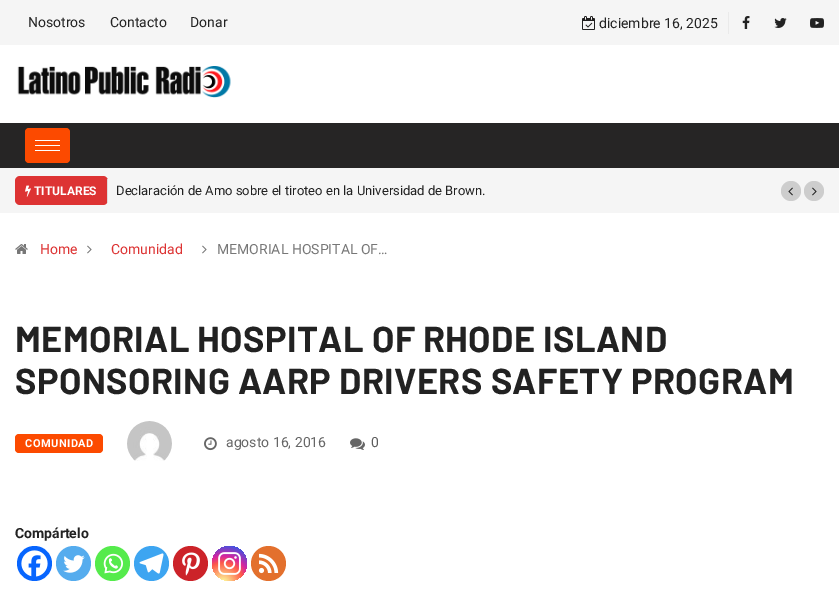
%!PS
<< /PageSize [839 603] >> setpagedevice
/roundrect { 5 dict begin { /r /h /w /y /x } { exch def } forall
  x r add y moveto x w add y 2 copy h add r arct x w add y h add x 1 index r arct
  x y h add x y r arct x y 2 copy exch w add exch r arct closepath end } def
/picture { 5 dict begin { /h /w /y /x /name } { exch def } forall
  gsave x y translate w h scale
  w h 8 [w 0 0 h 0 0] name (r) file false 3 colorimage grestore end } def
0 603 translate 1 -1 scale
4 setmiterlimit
1 setgray
0 0 839 603 rectfill
0.961 setgray
0 0 839 45 rectfill
/Roboto-Regular [14 0 0 -14 0 0] selectfont
0.133 setgray
28 27 moveto (Nosotros) show
110 27 moveto (Contacto) show
190 27 moveto (Donar) show
0.918 setgray
728 12 1 22 rectfill
(img1.rgb) 582 16 13 14 picture
0.133 setgray
599 28 moveto (diciembre 16, 2025) show
(img2.rgb) 742 16 8 13 picture
(img3.rgb) 774 18 13 10 picture
(img4.rgb) 810 18 14 10 picture
(img5.rgb) 17 66 214 32 picture
0.149 0.145 0.145 setrgbcolor
0 123 839 45 rectfill
0.988 0.29 0 setrgbcolor
25 128 45 35 4 roundrect fill
1 setgray
35 140 25 1 rectfill
35 145 25 1 rectfill
35 150 25 1 rectfill
0.961 setgray
0 168 839 45 rectfill
0.867 0.2 0.2 setrgbcolor
15 176 93 29 5 roundrect fill
0.871 0.859 0.859 setrgbcolor
107 179 1 24 rectfill
(img6.rgb) 25 185 6 12 picture
/Roboto-Bold [12 0 0 -12 0 0] selectfont
1 setgray
34 195 moveto (TITULARES) show
/Roboto-Regular [13 0 0 -13 0 0] selectfont
0.133 setgray
116 195 moveto (Declaración de Amo sobre el tiroteo en la Universidad de Brown.) show
0.804 setgray
newpath 791 191 10 0 360 arc closepath fill
(img7.rgb) 788 187 5 9 picture
newpath 814 191 10 0 360 arc closepath fill
(img8.rgb) 812 187 5 9 picture
(img9.rgb) 15 244 13 10 picture
/Roboto-Regular [14 0 0 -14 0 0] selectfont
0.867 0.2 0.2 setrgbcolor
40 254 moveto (Home) show
(img10.rgb) 87 245 5 9 picture
111 254 moveto (Comunidad) show
(img10.rgb) 202 245 5 9 picture
0.467 setgray
217 254 moveto (MEMORIAL HOSPITAL OF…) show
/Barlow-Bold [36 0 0 -36 0 0] selectfont
0.133 setgray
15 352 moveto 0.45 0 (MEMORIAL HOSPITAL OF RHODE ISLAND) ashow
15 394 moveto 0.45 0 (SPONSORING AARP DRIVERS SAFETY PROGRAM) ashow
0.988 0.29 0 setrgbcolor
15 434 88 19 4 roundrect fill
/Roboto-Bold [11 0 0 -11 0 0] selectfont
1 setgray
25 447 moveto 0.5 0 (COMUNIDAD) ashow
(img11.rgb) 127 421 45 40 picture
(img12.rgb) 204 437 13 14 picture
/Roboto-Regular [14 0 0 -14 0 0] selectfont
0.4 setgray
226 447 moveto (agosto 16, 2016) show
(img13.rgb) 350 438 15 12 picture
0.361 setgray
371 447 moveto (0) show
/Roboto-Bold [14 0 0 -14 0 0] selectfont
0.133 setgray
15 538 moveto (Compártelo) show
0.027 0.396 0.996 setrgbcolor
newpath 34.5 563.5 17.5 0 360 arc closepath fill
(img14.rgb) 21 550 27 27 picture
0.333 0.675 0.933 setrgbcolor
newpath 73.5 563.5 17.5 0 360 arc closepath fill
(img15.rgb) 63 555 22 18 picture
0.333 0.922 0.298 setrgbcolor
newpath 112.5 563.5 17.5 0 360 arc closepath fill
(img16.rgb) 103 553 20 21 picture
0.239 0.647 0.945 setrgbcolor
newpath 151.5 563.5 17.5 0 360 arc closepath fill
(img17.rgb) 139 553 25 21 picture
0.8 0.137 0.161 setrgbcolor
newpath 190.5 563.5 17.5 0 360 arc closepath fill
(img18.rgb) 182 552 18 24 picture
gsave newpath 229.5 563.5 17.5 0 360 arc closepath clip newpath 223 583 translate 45 45 scale
<< /ShadingType 3 /ColorSpace /DeviceRGB /Coords [0 0 0 0 0 1] /Extend [true true] /Function << /FunctionType 3 /Domain [0 1] /Functions [<< /FunctionType 2 /Domain [0 1] /C0 [0.992 0.957 0.592] /C1 [0.992 0.957 0.592] /N 1 >> << /FunctionType 2 /Domain [0 1] /C0 [0.992 0.957 0.592] /C1 [0.992 0.349 0.286] /N 1 >> << /FunctionType 2 /Domain [0 1] /C0 [0.992 0.349 0.286] /C1 [0.839 0.141 0.624] /N 1 >> << /FunctionType 2 /Domain [0 1] /C0 [0.839 0.141 0.624] /C1 [0.157 0.353 0.922] /N 1 >> << /FunctionType 2 /Domain [0 1] /C0 [0.157 0.353 0.922] /C1 [0.157 0.353 0.922] /N 1 >>] /Bounds [0.05 0.45 0.6 0.9] /Encode [0 1 0 1 0 1 0 1 0 1] >> >> shfill grestore
(img19.rgb) 218 552 23 23 picture
0.89 0.439 0.176 setrgbcolor
newpath 268.5 563.5 17.5 0 360 arc closepath fill
(img20.rgb) 258 553 21 21 picture
showpage
